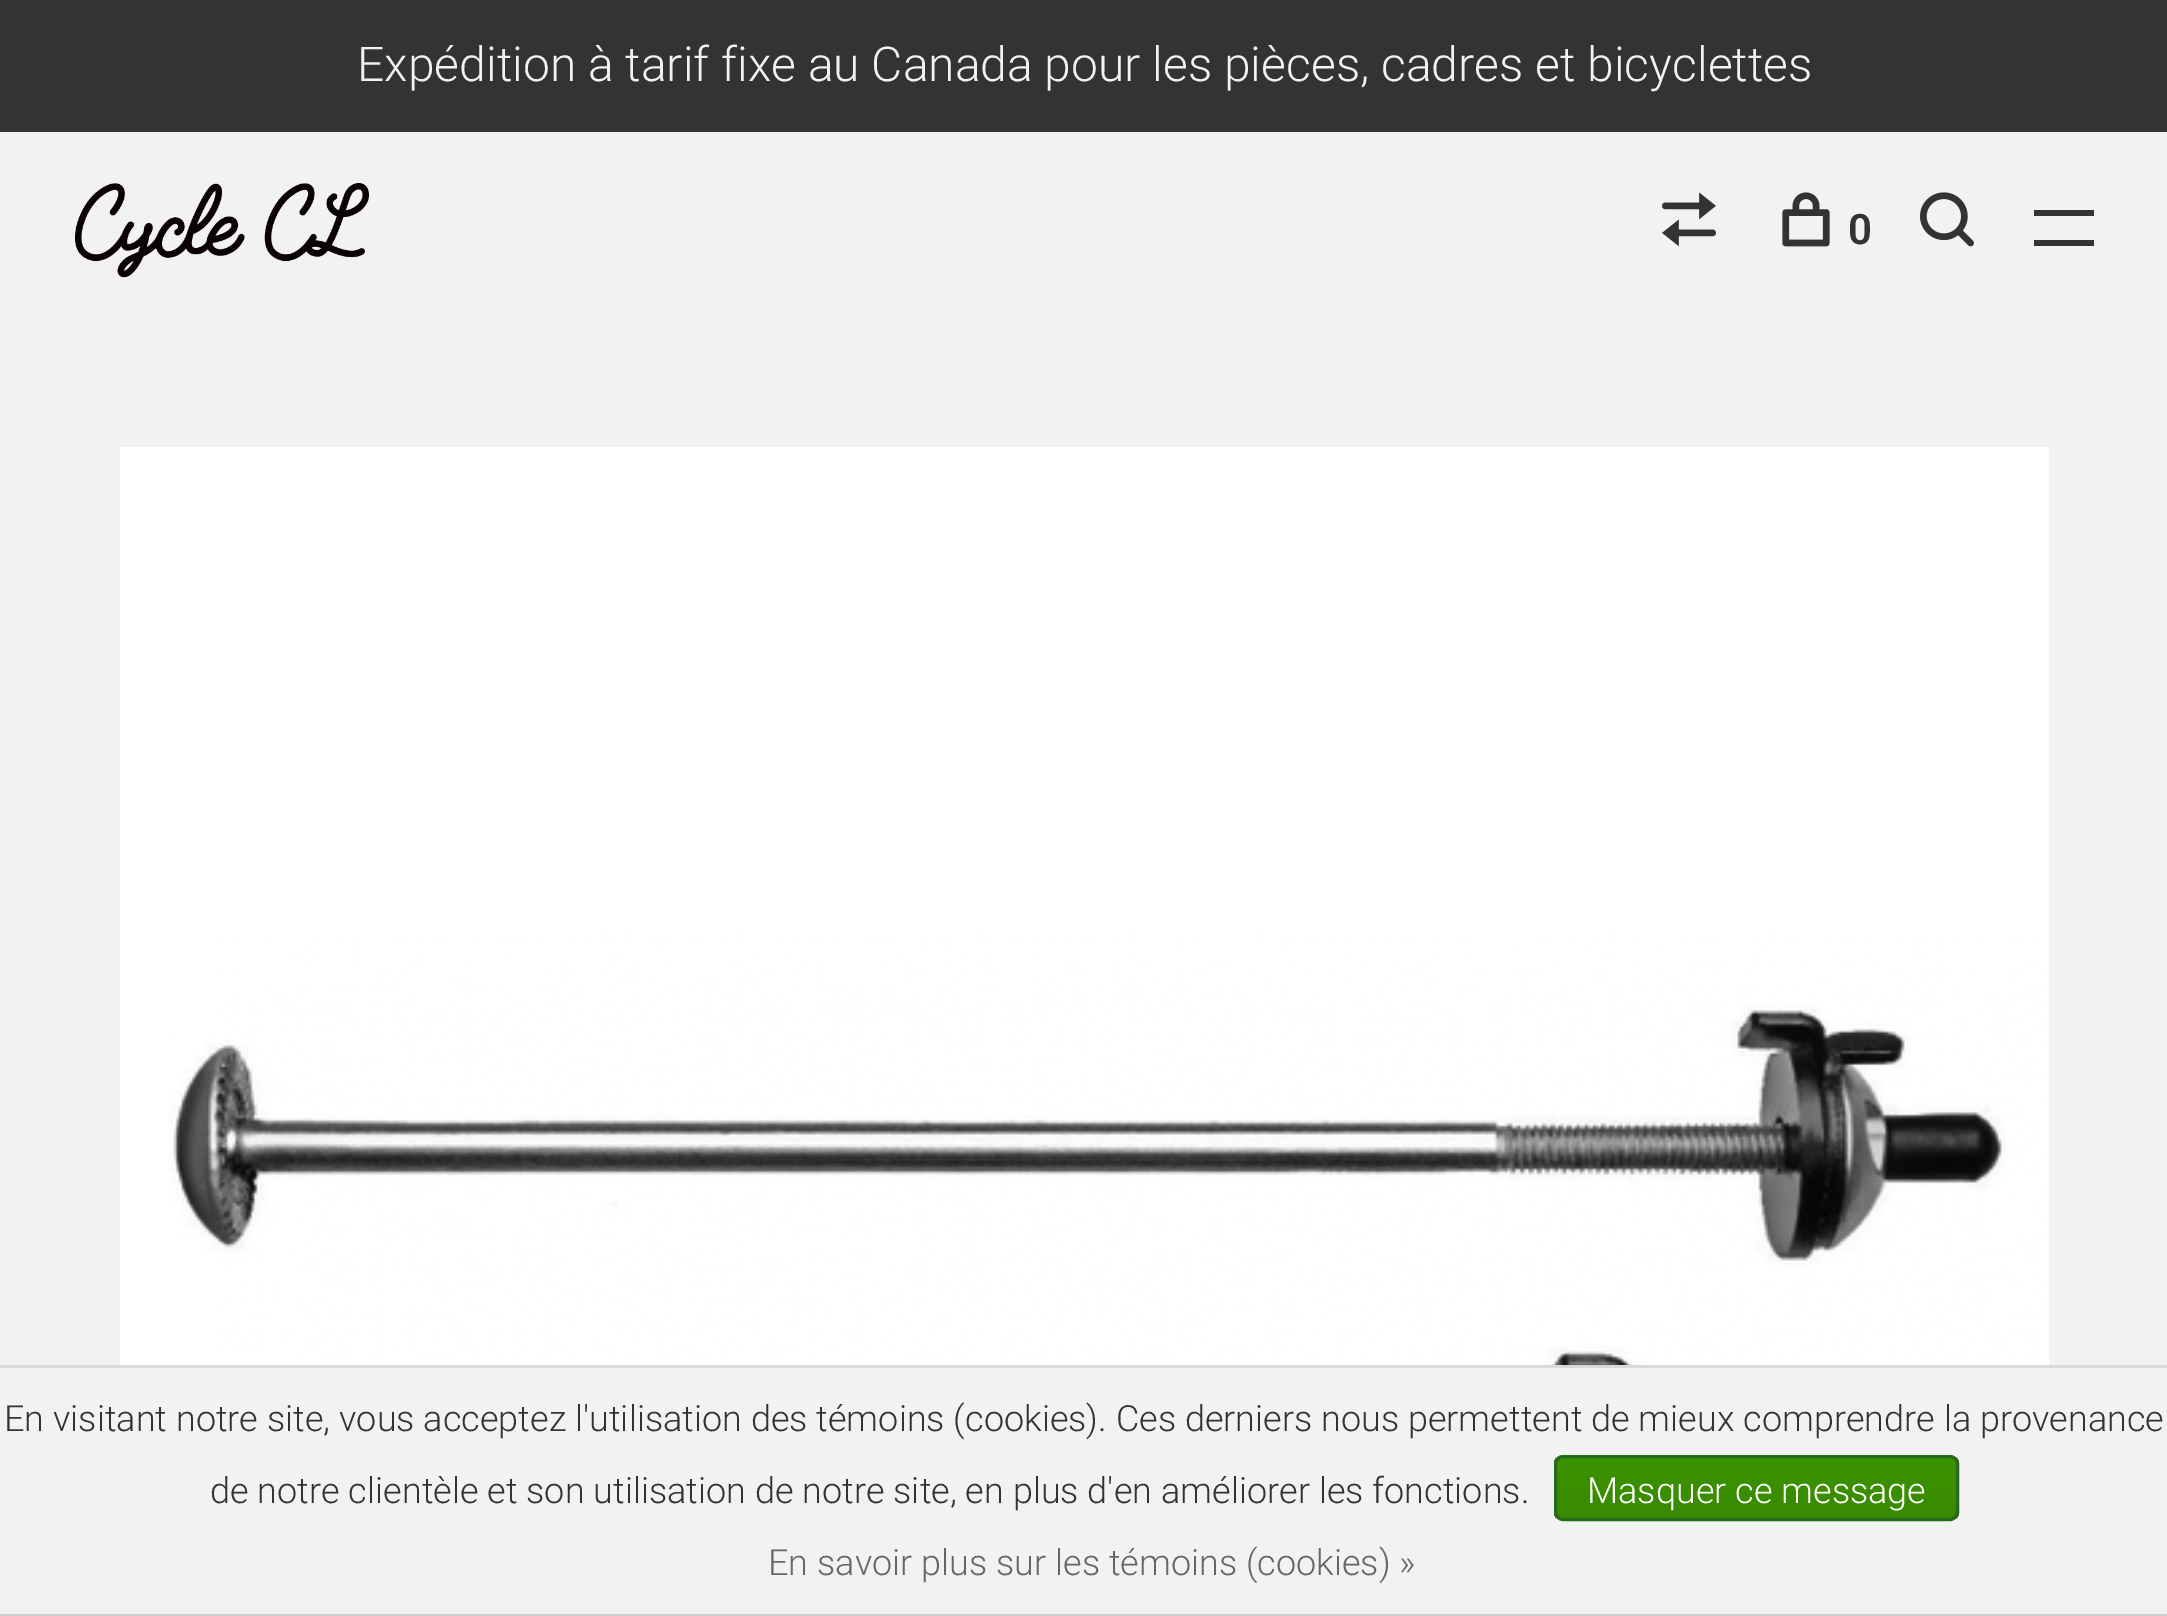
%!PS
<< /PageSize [2167 1616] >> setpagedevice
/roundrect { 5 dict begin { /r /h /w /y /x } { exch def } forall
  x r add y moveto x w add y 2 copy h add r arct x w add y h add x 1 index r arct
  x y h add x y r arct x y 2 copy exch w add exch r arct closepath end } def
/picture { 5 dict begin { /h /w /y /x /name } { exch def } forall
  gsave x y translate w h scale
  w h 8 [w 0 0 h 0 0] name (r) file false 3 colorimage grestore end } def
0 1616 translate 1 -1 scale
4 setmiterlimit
0.949 setgray
0 0 2167 1616 rectfill
0.2 setgray
0 0 2167 132 rectfill
/Roboto-Light [48 0 0 -48 0 0] selectfont
0.949 setgray
357 81 moveto (Expédition à tarif fixe au Canada pour les pièces, cadres et bicyclettes) show
(img1.rgb) 75 183 294 95 picture
(img2.rgb) 1662 192 54 55 picture
(img3.rgb) 1782 192 48 55 picture
/Roboto-SemiBold [42 0 0 -42 0 0] selectfont
0.2 setgray
1848 244 moveto (0) show
(img4.rgb) 1920 192 54 55 picture
2034 210 60 6 rectfill
2034 240 60 6 rectfill
(img5.rgb) 120 447 1929 918 picture
0.855 setgray
0 1365 2167 3 rectfill
0.8 setgray
0 1614 2167 2 rectfill
/Roboto-Light [36 0 0 -36 0 0] selectfont
0.2 setgray
4 1431 moveto (En visitant notre site, vous acceptez l'utilisation des témoins \(cookies\). Ces derniers nous permettent de mieux comprendre la provenance) show
210 1503 moveto (de notre clientèle et son utilisation de notre site, en plus d'en améliorer les fonctions.) show
gsave
1554 1455 405 66 9 roundrect clip newpath
gsave newpath 1554 1458 moveto 1959 1458 lineto 1959 1518 lineto 1554 1518 lineto closepath clip newpath
<< /ShadingType 2 /ColorSpace /DeviceRGB /Coords [1757 1458 1757 1518] /Extend [true true] /Function << /FunctionType 2 /Domain [0 1] /C0 [0.235 0.576 0] /C1 [0.224 0.541 0] /N 1 >> >> shfill grestore
grestore
0.161 0.412 0.114 setrgbcolor
3 setlinewidth
1555.5 1456.5 402 63 7.5 roundrect stroke
1 setgray
1587 1503 moveto (Masquer ce message) show
0.4 setgray
768 1575 moveto (En savoir plus sur les témoins \(cookies\) ») show
showpage
